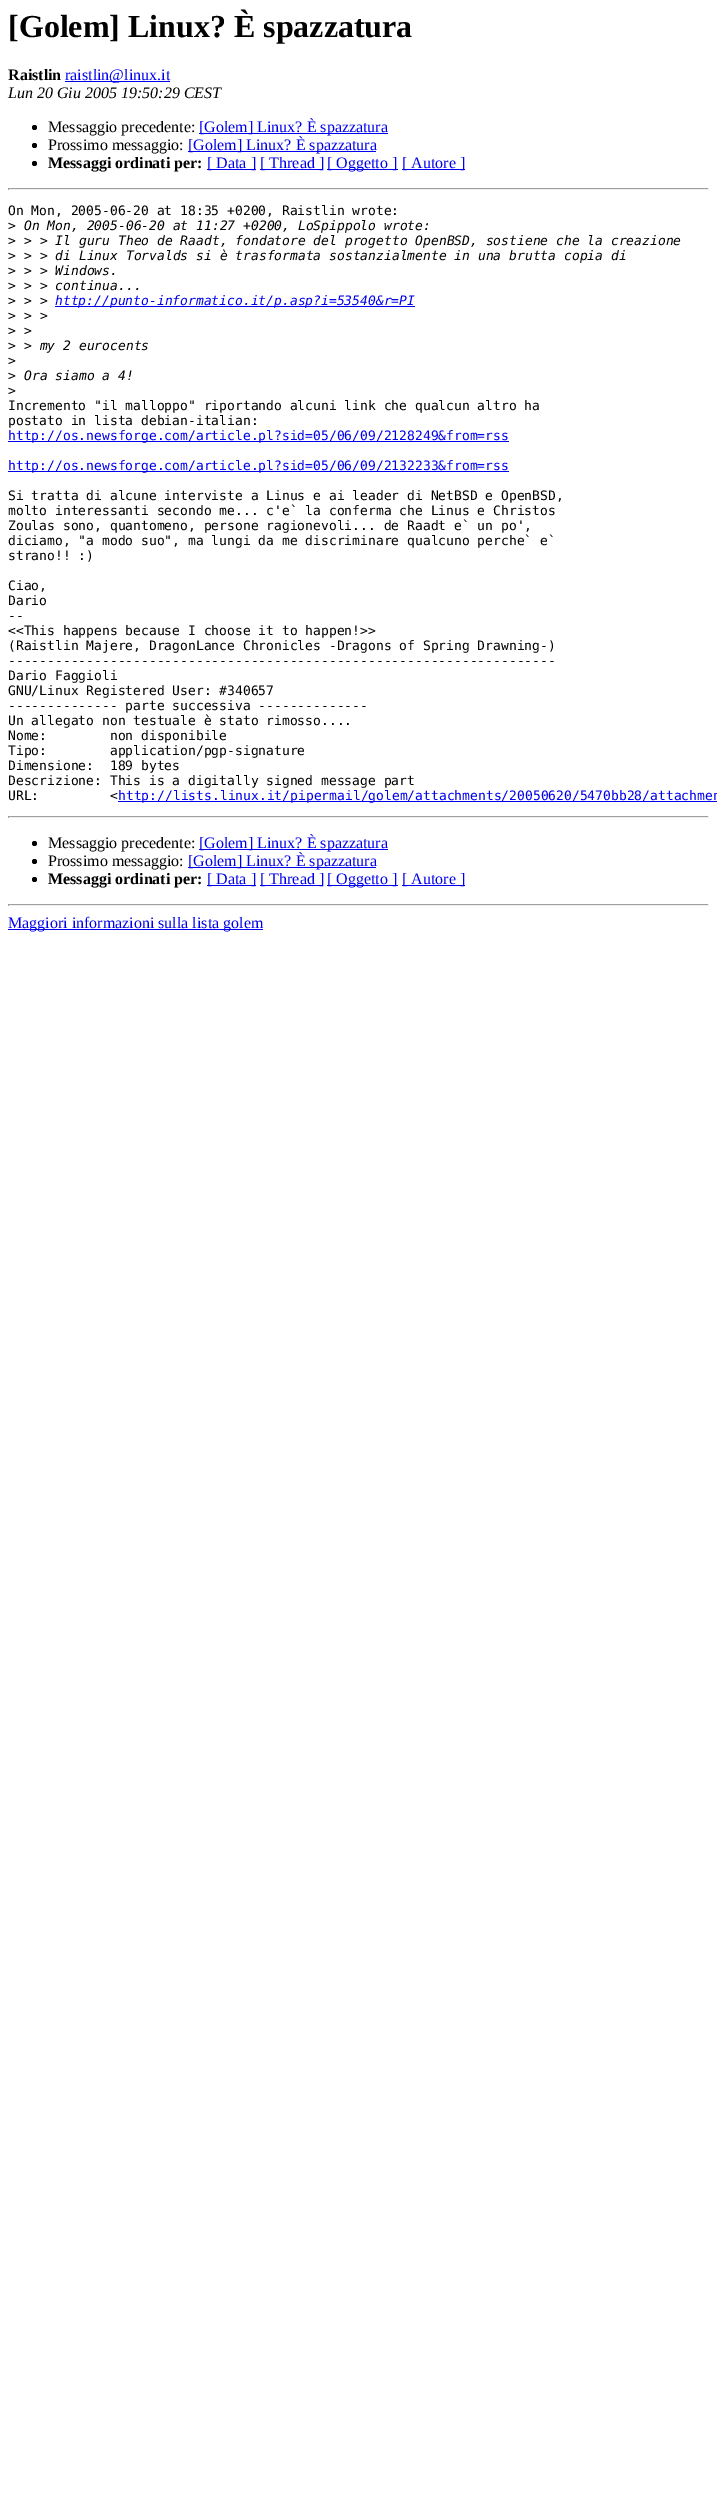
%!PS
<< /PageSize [717 2519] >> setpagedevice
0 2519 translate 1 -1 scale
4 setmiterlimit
1 setgray
0 0 717 2519 rectfill
/LiberationSerif-Bold [32 0 0 -32 0 0] selectfont
0 setgray
8 37 moveto ([Golem] Linux? È spazzatura) show
/LiberationSerif-Bold [16 0 0 -16 0 0] selectfont
8 80 moveto (Raistlin) show
0 0 0.933 setrgbcolor
65 81 105 1 rectfill
/LiberationSerif-Regular [16 0 0 -16 0 0] selectfont
65 80 moveto (raistlin@linux.it) show
/LiberationSerif-Italic [16 0 0 -16 0 0] selectfont
0 setgray
8 98 moveto (Lun 20 Giu 2005 19:50:29 CEST) show
newpath 34.5 127.5 2.5 0 360 arc closepath fill
/LiberationSerif-Regular [16 0 0 -16 0 0] selectfont
48 132 moveto (Messaggio precedente:) show
0 0 0.933 setrgbcolor
199 133 189 1 rectfill
199 132 moveto ([Golem] Linux? È spazzatura) show
0 setgray
newpath 34.5 145.5 2.5 0 360 arc closepath fill
48 150 moveto (Prossimo messaggio:) show
0 0 0.933 setrgbcolor
188 151 188 1 rectfill
188 150 moveto ([Golem] Linux? È spazzatura) show
0 setgray
newpath 34.5 163.5 2.5 0 360 arc closepath fill
/LiberationSerif-Bold [16 0 0 -16 0 0] selectfont
48 168 moveto (Messaggi ordinati per:) show
0 0 0.933 setrgbcolor
207 169 49 1 rectfill
/LiberationSerif-Regular [16 0 0 -16 0 0] selectfont
207 168 moveto ([ Data ]) show
260 169 63 1 rectfill
260 168 moveto ([ Thread ]) show
327 169 71 1 rectfill
327 168 moveto ([ Oggetto ]) show
402 169 63 1 rectfill
402 168 moveto ([ Autore ]) show
0.624 setgray
8 188 701 1 rectfill
0.933 setgray
708 188 1 2 rectfill
8 189 701 1 rectfill
0.624 setgray
8 188 1 2 rectfill
/DejaVuSansMono-Regular [13 0 0 -13 0 0] selectfont
0 setgray
8 215 moveto (On Mon, 2005-06-20 at 18:35 +0200, Raistlin wrote:) show
8 230 moveto (>) show
/DejaVuSansMono-Italic [13 0 0 -13 0 0] selectfont
24 230 moveto (On Mon, 2005-06-20 at 11:27 +0200, LoSpippolo wrote:) show
/DejaVuSansMono-Regular [13 0 0 -13 0 0] selectfont
8 245 moveto (>) show
/DejaVuSansMono-Italic [13 0 0 -13 0 0] selectfont
24 245 moveto (> > Il guru Theo de Raadt, fondatore del progetto OpenBSD, sostiene che la creazione) show
/DejaVuSansMono-Regular [13 0 0 -13 0 0] selectfont
8 260 moveto (>) show
/DejaVuSansMono-Italic [13 0 0 -13 0 0] selectfont
24 260 moveto (> > di Linux Torvalds si è trasformata sostanzialmente in una brutta copia di) show
/DejaVuSansMono-Regular [13 0 0 -13 0 0] selectfont
8 275 moveto (>) show
/DejaVuSansMono-Italic [13 0 0 -13 0 0] selectfont
24 275 moveto (> > Windows.) show
/DejaVuSansMono-Regular [13 0 0 -13 0 0] selectfont
8 290 moveto (>) show
/DejaVuSansMono-Italic [13 0 0 -13 0 0] selectfont
24 290 moveto (> > continua...) show
/DejaVuSansMono-Regular [13 0 0 -13 0 0] selectfont
8 305 moveto (>) show
/DejaVuSansMono-Italic [13 0 0 -13 0 0] selectfont
24 305 moveto (> >) show
0 0 0.933 setrgbcolor
55 306 360 1 rectfill
55 305 moveto (http://punto-informatico.it/p.asp?i=53540&r=PI) show
/DejaVuSansMono-Regular [13 0 0 -13 0 0] selectfont
0 setgray
8 320 moveto (>) show
/DejaVuSansMono-Italic [13 0 0 -13 0 0] selectfont
24 320 moveto (> >) show
/DejaVuSansMono-Regular [13 0 0 -13 0 0] selectfont
8 335 moveto (>) show
/DejaVuSansMono-Italic [13 0 0 -13 0 0] selectfont
24 335 moveto (>) show
/DejaVuSansMono-Regular [13 0 0 -13 0 0] selectfont
8 350 moveto (>) show
/DejaVuSansMono-Italic [13 0 0 -13 0 0] selectfont
24 350 moveto (> my 2 eurocents) show
/DejaVuSansMono-Regular [13 0 0 -13 0 0] selectfont
8 365 moveto (>) show
8 380 moveto (>) show
/DejaVuSansMono-Italic [13 0 0 -13 0 0] selectfont
24 380 moveto (Ora siamo a 4!) show
/DejaVuSansMono-Regular [13 0 0 -13 0 0] selectfont
8 395 moveto (>) show
8 410 moveto (Incremento "il malloppo" riportando alcuni link che qualcun altro ha) show
8 425 moveto (postato in lista debian-italian:) show
0 0 0.933 setrgbcolor
8 441 501 1 rectfill
8 440 moveto (http://os.newsforge.com/article.pl?sid=05/06/09/2128249&from=rss) show
8 471 501 1 rectfill
8 470 moveto (http://os.newsforge.com/article.pl?sid=05/06/09/2132233&from=rss) show
0 setgray
8 500 moveto (Si tratta di alcune interviste a Linus e ai leader di NetBSD e OpenBSD,) show
8 515 moveto (molto interessanti secondo me... c'e` la conferma che Linus e Christos) show
8 530 moveto (Zoulas sono, quantomeno, persone ragionevoli... de Raadt e` un po',) show
8 545 moveto (diciamo, "a modo suo", ma lungi da me discriminare qualcuno perche` e`) show
8 560 moveto (strano!! :\)) show
8 590 moveto (Ciao,) show
8 605 moveto (Dario) show
8 620 moveto (--) show
8 635 moveto (<<This happens because I choose it to happen!>>) show
8 650 moveto (\(Raistlin Majere, DragonLance Chronicles -Dragons of Spring Drawning-\)) show
8 665 moveto (----------------------------------------------------------------------) show
8 680 moveto (Dario Faggioli) show
8 695 moveto (GNU/Linux Registered User: #340657) show
8 710 moveto (-------------- parte successiva --------------) show
8 725 moveto (Un allegato non testuale è stato rimosso....) show
8 740 moveto (Nome:        non disponibile) show
8 755 moveto (Tipo:        application/pgp-signature) show
8 770 moveto (Dimensione:  189 bytes) show
8 785 moveto (Descrizione: This is a digitally signed message part) show
8 800 moveto (URL:         <) show
0 0 0.933 setrgbcolor
118 801 599 1 rectfill
118 800 moveto (http://lists.linux.it/pipermail/golem/attachments/20050620/5470bb28/attachmen) show
0.624 setgray
8 816 701 1 rectfill
0.933 setgray
708 816 1 2 rectfill
8 817 701 1 rectfill
0.624 setgray
8 816 1 2 rectfill
0 setgray
newpath 34.5 843.5 2.5 0 360 arc closepath fill
/LiberationSerif-Regular [16 0 0 -16 0 0] selectfont
48 848 moveto (Messaggio precedente:) show
0 0 0.933 setrgbcolor
199 849 189 1 rectfill
199 848 moveto ([Golem] Linux? È spazzatura) show
0 setgray
newpath 34.5 861.5 2.5 0 360 arc closepath fill
48 866 moveto (Prossimo messaggio:) show
0 0 0.933 setrgbcolor
188 867 188 1 rectfill
188 866 moveto ([Golem] Linux? È spazzatura) show
0 setgray
newpath 34.5 879.5 2.5 0 360 arc closepath fill
/LiberationSerif-Bold [16 0 0 -16 0 0] selectfont
48 884 moveto (Messaggi ordinati per:) show
0 0 0.933 setrgbcolor
207 885 49 1 rectfill
/LiberationSerif-Regular [16 0 0 -16 0 0] selectfont
207 884 moveto ([ Data ]) show
260 885 63 1 rectfill
260 884 moveto ([ Thread ]) show
327 885 71 1 rectfill
327 884 moveto ([ Oggetto ]) show
402 885 63 1 rectfill
402 884 moveto ([ Autore ]) show
0.624 setgray
8 904 701 1 rectfill
0.933 setgray
708 904 1 2 rectfill
8 905 701 1 rectfill
0.624 setgray
8 904 1 2 rectfill
0 0 0.933 setrgbcolor
8 929 255 1 rectfill
8 928 moveto (Maggiori informazioni sulla lista golem) show
showpage
